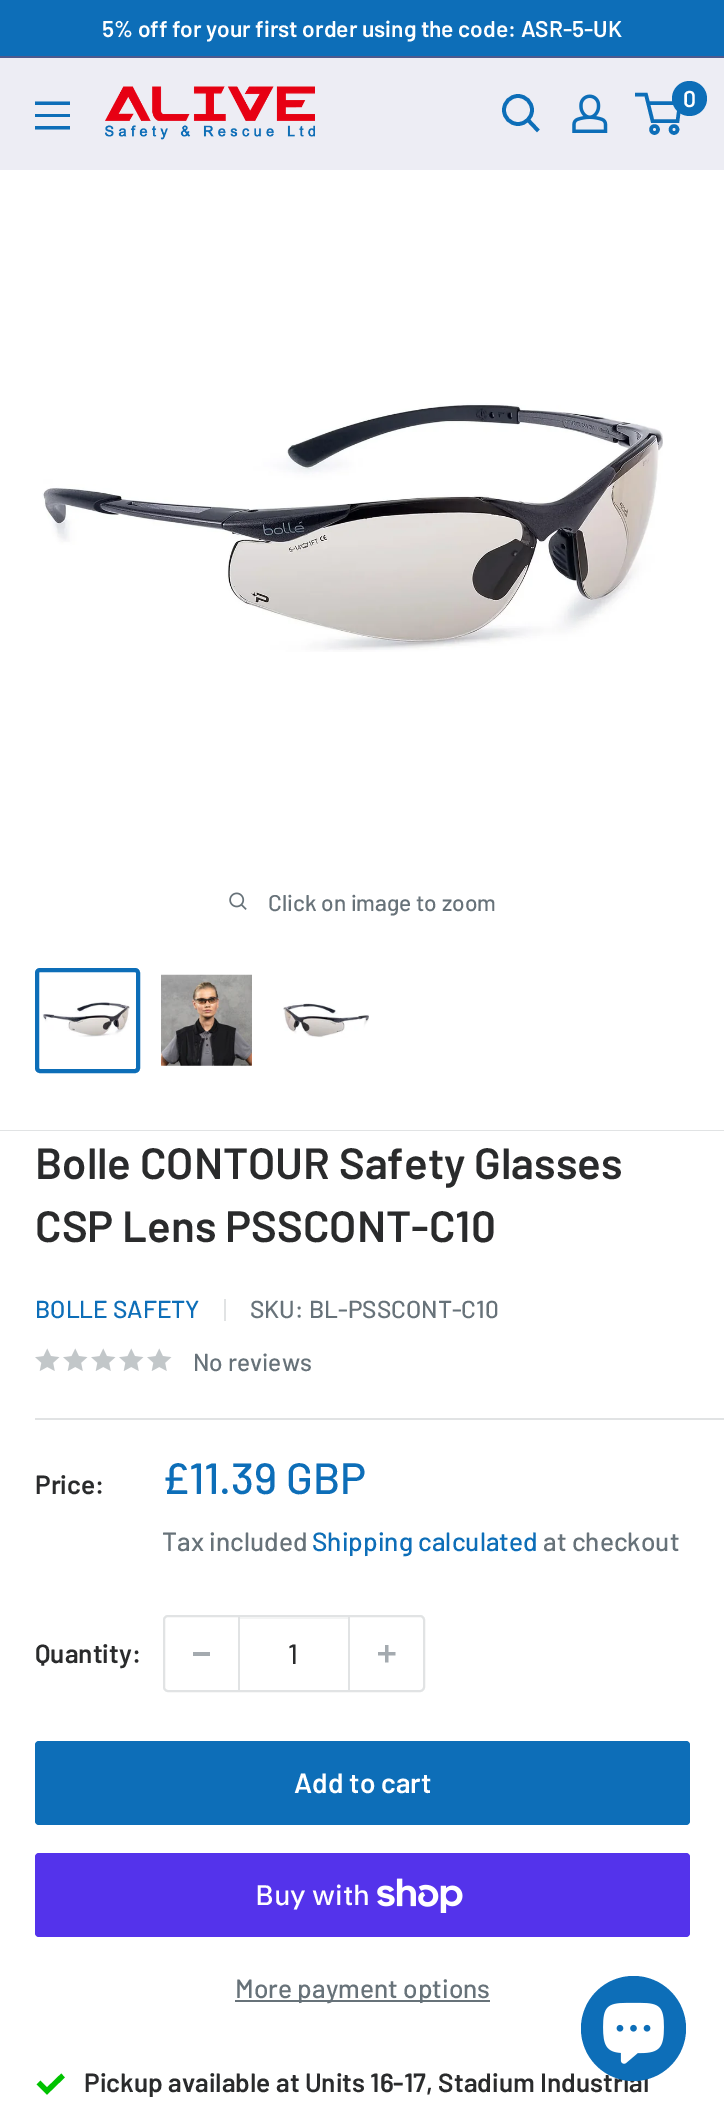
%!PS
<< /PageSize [724 2117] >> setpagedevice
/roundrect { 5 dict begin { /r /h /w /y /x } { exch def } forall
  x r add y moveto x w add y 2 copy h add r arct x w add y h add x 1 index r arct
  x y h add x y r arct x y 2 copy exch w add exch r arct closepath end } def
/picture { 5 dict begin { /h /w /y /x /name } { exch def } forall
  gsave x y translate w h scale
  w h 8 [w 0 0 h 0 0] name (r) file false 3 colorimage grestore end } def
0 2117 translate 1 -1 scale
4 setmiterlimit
0.051 0.431 0.722 setrgbcolor
0 0 724 2117 rectfill
0.302 0.353 0.557 setrgbcolor
0 56 724 2 rectfill
/Barlow-SemiBold [22.75 0 0 -22.75 0 0] selectfont
1 setgray
102 37 moveto (5% off for your first order using the code: ASR-5-UK) show
0.929 0.929 0.957 setrgbcolor
0 58 724 112 rectfill
(img1.rgb) 105 86 210 54 picture
0.051 0.431 0.722 setrgbcolor
3.7 setlinewidth
2 setlinecap
newpath 537 129.5 moveto 528 120 lineto stroke
0 setlinecap
newpath 518 110 14 0 360 arc closepath stroke
(img2.rgb) 572 94 36 39 picture
3.5 setlinewidth
newpath 654.5 129.5 3.5 0 360 arc closepath stroke
newpath 674 129.5 3.5 0 360 arc closepath stroke
newpath 648 103 moveto 680 103 lineto 677.5 121 lineto 652.5 121 lineto 646 94.5 lineto 635 94.5 lineto stroke
newpath 689.5 98.5 17.5 0 360 arc closepath fill
/Barlow-SemiBold [23 0 0 -23 0 0] selectfont
1 setgray
683 107 moveto (0) show
0.051 0.431 0.722 setrgbcolor
newpath 35 126 moveto 70 126 lineto 70 129.5 lineto 35 129.5 lineto closepath 35 101.5 moveto 70 101.5 lineto 70 105 lineto 35 105 lineto closepath 35 114 moveto 70 114 lineto 70 117 lineto 35 117 lineto closepath eofill
1 setgray
0 170 724 959 rectfill
0.882 0.89 0.894 setrgbcolor
0 1130 724 1 rectfill
(img3.rgb) 42 403 621 249 picture
(img4.rgb) 229 892 18 18 picture
/Barlow-Medium [22.75 0 0 -22.75 0 0] selectfont
0.404 0.447 0.475 setrgbcolor
268 911 moveto (Click on image to zoom) show
0.051 0.431 0.722 setrgbcolor
4 setlinewidth
37 970 101 101 3 roundrect stroke
(img5.rgb) 42 1002 88 35 picture
(img6.rgb) 161 974 91 92 picture
(img7.rgb) 283 1003 86 35 picture
1 setgray
newpath 0 1129 moveto 0 1130 lineto 724 1130 lineto 724 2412 lineto 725 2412 lineto 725 1129 lineto closepath fill
0 1131 724 986 rectfill
/Barlow-SemiBold [43.75 0 0 -43.75 0 0] selectfont
0.165 0.169 0.173 setrgbcolor
35 1179 moveto (Bolle CONTOUR Safety Glasses) show
35 1242 moveto (CSP Lens PSSCONT-C10) show
/Barlow-Medium [24.5 0 0 -24.5 0 0] selectfont
0.051 0.431 0.722 setrgbcolor
35 1318 moveto (BOLLE SAFETY) show
0.882 0.89 0.894 setrgbcolor
224 1299 2 22 rectfill
0.404 0.447 0.475 setrgbcolor
250 1318 moveto (SKU: BL-PSSCONT-C10) show
(img8.rgb) 35 1348 25 23 picture
(img8.rgb) 63 1348 25 23 picture
(img8.rgb) 91 1348 25 23 picture
(img8.rgb) 119 1348 25 23 picture
(img8.rgb) 147 1348 25 23 picture
193 1371 moveto (No reviews) show
0.882 0.89 0.894 setrgbcolor
35 1418 689 2 rectfill
/Barlow-SemiBold [26.25 0 0 -26.25 0 0] selectfont
0.165 0.169 0.173 setrgbcolor
35 1494 moveto (Price:) show
/Barlow-Medium [43.75 0 0 -43.75 0 0] selectfont
0.051 0.431 0.722 setrgbcolor
162 1494 moveto (£11.39 GBP) show
/Barlow-Medium [26.25 0 0 -26.25 0 0] selectfont
0.404 0.447 0.475 setrgbcolor
162 1551 moveto (Tax included) show
0.051 0.431 0.722 setrgbcolor
312 1551 moveto (Shipping calculated) show
0.404 0.447 0.475 setrgbcolor
543 1551 moveto (at checkout) show
/Barlow-SemiBold [26.25 0 0 -26.25 0 0] selectfont
0.165 0.169 0.173 setrgbcolor
35 1663 moveto (Quantity:) show
0.882 0.89 0.894 setrgbcolor
2 setlinewidth
164 1616 260 75 4 roundrect stroke
0.643 0.667 0.686 setrgbcolor
193 1652 17 4 rectfill
0.953 0.957 0.957 setrgbcolor
240 1617 108 2 rectfill
0.882 0.89 0.894 setrgbcolor
348 1617 2 74 rectfill
238 1617 2 74 rectfill
/Barlow-Medium [28 0 0 -28 0 0] selectfont
0.165 0.169 0.173 setrgbcolor
288 1664 moveto (1) show
(img9.rgb) 378 1645 18 18 picture
0.051 0.431 0.722 setrgbcolor
35 1741 655 84 4 roundrect fill
/Barlow-SemiBold [28 0 0 -28 0 0] selectfont
1 setgray
294 1793 moveto (Add to cart) show
0.329 0.2 0.922 setrgbcolor
35 1853 655 84 4 roundrect fill
/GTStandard-Medium [28 0 0 -28 0 0] selectfont
1 setgray
255 1905 moveto (Buy with) show
(img10.rgb) 377 1878 86 35 picture
0.404 0.447 0.475 setrgbcolor
235 2000 255 2 rectfill
/Barlow-Medium [26.25 0 0 -26.25 0 0] selectfont
235 1998 moveto (More payment options) show
0 0.761 0 setrgbcolor
5.2 setlinewidth
newpath 38.5 2082.5 moveto 47 2091 lineto 63 2075.5 lineto stroke
/Barlow-SemiBold [26.25 0 0 -26.25 0 0] selectfont
0.165 0.169 0.173 setrgbcolor
84 2092 moveto (Pickup available at Units 16-17, Stadium Industrial) show
0.051 0.431 0.722 setrgbcolor
newpath 633.5 2028.5 52.5 0 360 arc closepath fill
(img11.rgb) 603 2002 61 62 picture
showpage
